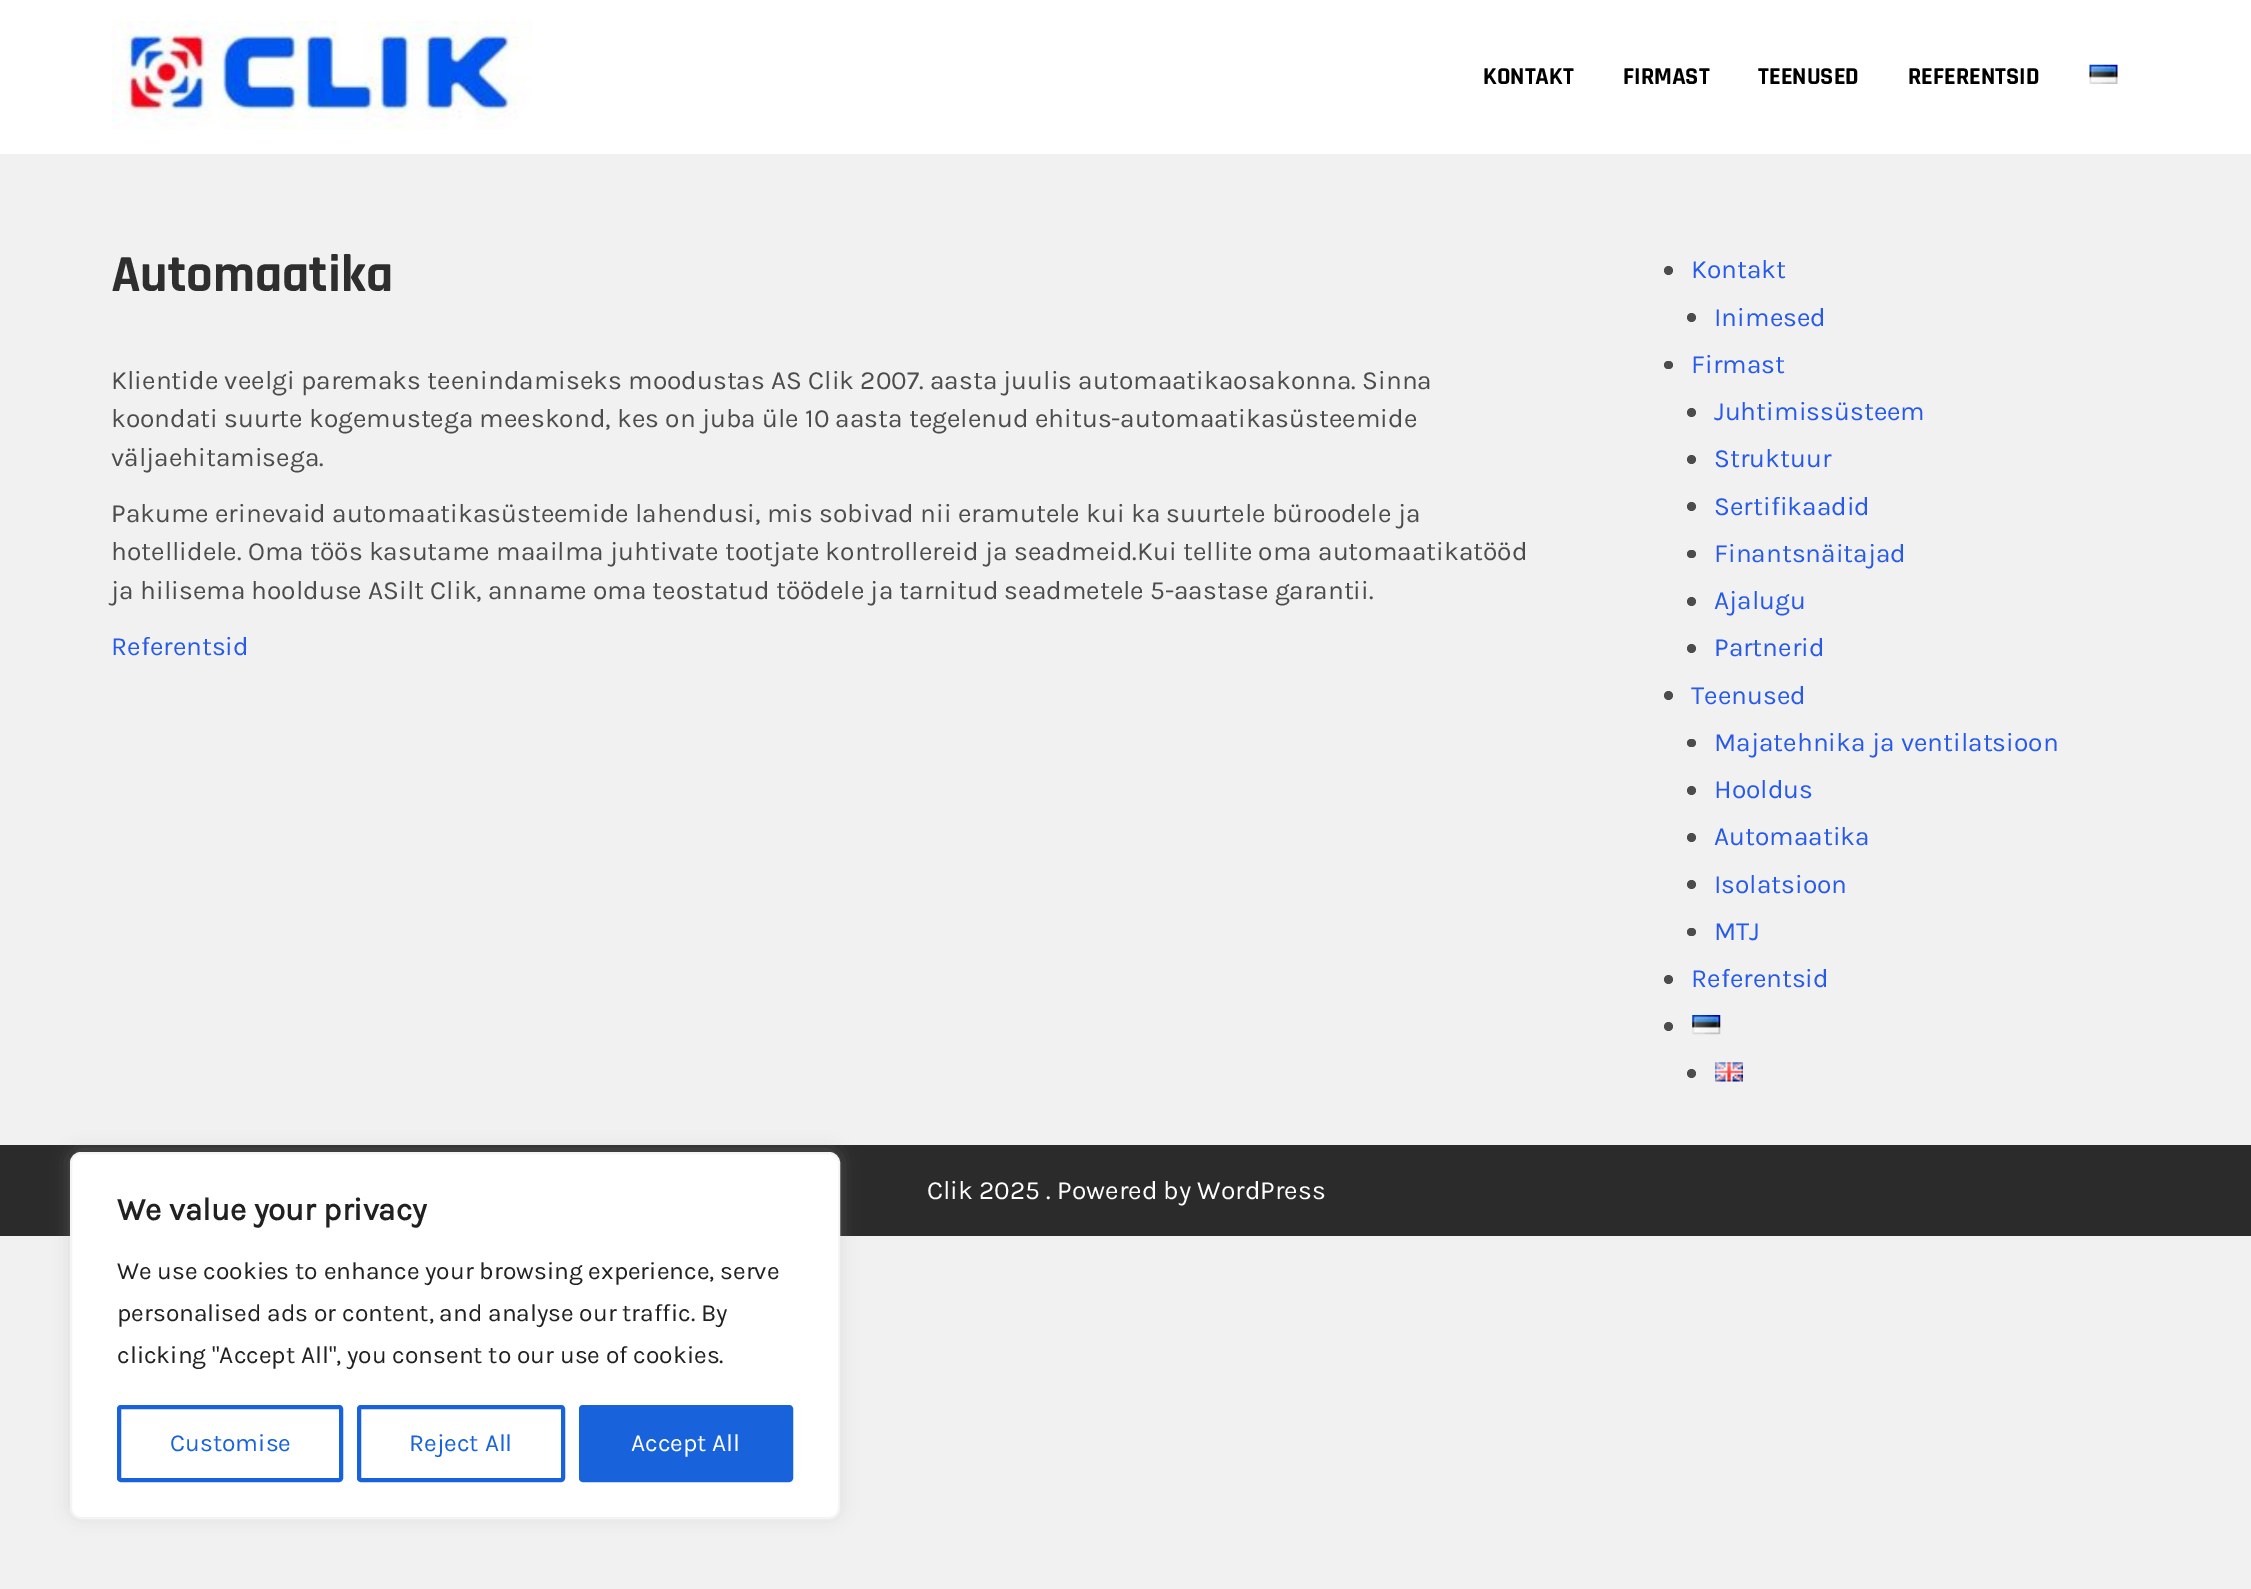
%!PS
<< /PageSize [2251 1589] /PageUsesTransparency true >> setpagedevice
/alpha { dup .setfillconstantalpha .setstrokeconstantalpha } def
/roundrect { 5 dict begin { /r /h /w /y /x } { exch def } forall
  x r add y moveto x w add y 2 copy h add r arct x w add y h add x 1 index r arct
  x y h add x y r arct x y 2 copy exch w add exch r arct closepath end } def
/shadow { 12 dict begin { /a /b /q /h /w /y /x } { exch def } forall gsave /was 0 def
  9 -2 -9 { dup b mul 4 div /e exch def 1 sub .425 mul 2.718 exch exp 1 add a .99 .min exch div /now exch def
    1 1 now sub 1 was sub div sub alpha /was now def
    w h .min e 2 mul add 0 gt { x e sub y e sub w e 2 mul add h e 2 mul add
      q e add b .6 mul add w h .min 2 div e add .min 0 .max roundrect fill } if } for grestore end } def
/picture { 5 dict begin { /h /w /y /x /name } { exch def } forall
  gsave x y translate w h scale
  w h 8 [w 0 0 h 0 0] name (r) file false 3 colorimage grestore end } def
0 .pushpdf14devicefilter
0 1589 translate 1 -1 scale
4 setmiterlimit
0.945 setgray
0 0 2251 1589 rectfill
1 setgray
0 0 2251 154 rectfill
(img1.rgb) 112 21 420 109 picture
/Rajdhani-Bold [24.5 0 0 -24.5 0 0] selectfont
0 setgray
1483 84 moveto (KONTAKT) show
1623 84 moveto (FIRMAST) show
1758 84 moveto (TEENUSED) show
1908 84 moveto (REFERENTSID) show
(img2.rgb) 2089 64 29 20 picture
/Rajdhani-Bold [52.5 0 0 -52.5 0 0] selectfont
0.18 setgray
111 291 moveto (Automaatika) show
/Karla-Regular [26.25 0 0 -26.25 0 0] selectfont
0.298 setgray
111 389 moveto (Klientide veelgi paremaks teenindamiseks moodustas AS Clik 2007. aasta juulis automaatikaosakonna. Sinna) show
111 427 moveto (koondati suurte kogemustega meeskond, kes on juba üle 10 aasta tegelenud ehitus-automaatikasüsteemide) show
111 466 moveto (väljaehitamisega.) show
111 522 moveto (Pakume erinevaid automaatikasüsteemide lahendusi, mis sobivad nii eramutele kui ka suurtele büroodele ja) show
111 560 moveto (hotellidele. Oma töös kasutame maailma juhtivate tootjate kontrollereid ja seadmeid.Kui tellite oma automaatikatööd) show
111 599 moveto (ja hilisema hoolduse ASilt Clik, anname oma teostatud töödele ja tarnitud seadmetele 5-aastase garantii.) show
0.153 0.353 0.91 setrgbcolor
111 655 moveto (Referentsid) show
0.298 setgray
newpath 1668.5 270.5 4.5 0 360 arc closepath fill
0.153 0.353 0.91 setrgbcolor
1691 278 moveto (Kontakt) show
0.298 setgray
newpath 1691.5 317.5 4.5 0 360 arc closepath fill
0.153 0.353 0.91 setrgbcolor
1714 326 moveto (Inimesed) show
0.298 setgray
1664 361 9 8 4 roundrect fill
0.153 0.353 0.91 setrgbcolor
1691 373 moveto (Firmast) show
0.298 setgray
newpath 1691.5 412.5 4.5 0 360 arc closepath fill
0.153 0.353 0.91 setrgbcolor
1714 420 moveto (Juhtimissüsteem) show
0.298 setgray
newpath 1691.5 459.5 4.5 0 360 arc closepath fill
0.153 0.353 0.91 setrgbcolor
1714 467 moveto (Struktuur) show
0.298 setgray
newpath 1691.5 506.5 4.5 0 360 arc closepath fill
0.153 0.353 0.91 setrgbcolor
1714 515 moveto (Sertifikaadid) show
0.298 setgray
1687 550 9 8 4 roundrect fill
0.153 0.353 0.91 setrgbcolor
1714 562 moveto (Finantsnäitajad) show
0.298 setgray
newpath 1691.5 601.5 4.5 0 360 arc closepath fill
0.153 0.353 0.91 setrgbcolor
1714 609 moveto (Ajalugu) show
0.298 setgray
newpath 1691.5 648.5 4.5 0 360 arc closepath fill
0.153 0.353 0.91 setrgbcolor
1714 656 moveto (Partnerid) show
0.298 setgray
newpath 1668.5 695.5 4.5 0 360 arc closepath fill
0.153 0.353 0.91 setrgbcolor
1691 704 moveto (Teenused) show
0.298 setgray
1687 739 9 8 4 roundrect fill
0.153 0.353 0.91 setrgbcolor
1714 751 moveto (Majatehnika ja ventilatsioon) show
0.298 setgray
newpath 1691.5 790.5 4.5 0 360 arc closepath fill
0.153 0.353 0.91 setrgbcolor
1714 798 moveto (Hooldus) show
0.298 setgray
newpath 1691.5 837.5 4.5 0 360 arc closepath fill
0.153 0.353 0.91 setrgbcolor
1714 845 moveto (Automaatika) show
0.298 setgray
newpath 1691.5 884.5 4.5 0 360 arc closepath fill
0.153 0.353 0.91 setrgbcolor
1714 893 moveto (Isolatsioon) show
0.298 setgray
1687 928 9 8 4 roundrect fill
0.153 0.353 0.91 setrgbcolor
1714 940 moveto (MTJ) show
0.298 setgray
newpath 1668.5 979.5 4.5 0 360 arc closepath fill
0.153 0.353 0.91 setrgbcolor
1691 987 moveto (Referentsid) show
0.298 setgray
newpath 1668.5 1026.5 4.5 0 360 arc closepath fill
(img3.rgb) 1692 1015 29 20 picture
newpath 1691.5 1073.5 4.5 0 360 arc closepath fill
(img4.rgb) 1715 1062 28 20 picture
0.169 setgray
0 1145 2251 91 rectfill
1 setgray
927 1199 moveto (Clik 2025 . Powered by WordPress) show
0.675 0.671 0.671 setrgbcolor
70 1150 770 367 11 9 0.3 shadow
1 setgray
71 1153 768 365 10 roundrect gsave fill grestore
0.957 setgray
2 setlinewidth
stroke
/Karla-Bold [31.5 0 0 -31.5 0 0] selectfont
0.129 setgray
117 1220 moveto (We value your privacy) show
/Karla-Regular [24.5 0 0 -24.5 0 0] selectfont
117 1279 moveto (We use cookies to enhance your browsing experience, serve) show
117 1321 moveto (personalised ads or content, and analyse our traffic. By) show
117 1363 moveto (clicking "Accept All", you consent to our use of cookies.) show
0.094 0.388 0.863 setrgbcolor
4 setlinewidth
119 1407 222 73 2 roundrect stroke
170 1451 moveto (Customise) show
359 1407 204 73 2 roundrect stroke
409 1451 moveto (Reject All) show
581 1407 210 73 2 roundrect gsave fill grestore
stroke
1 setgray
631 1451 moveto (Accept All) show
.poppdf14devicefilter showpage
